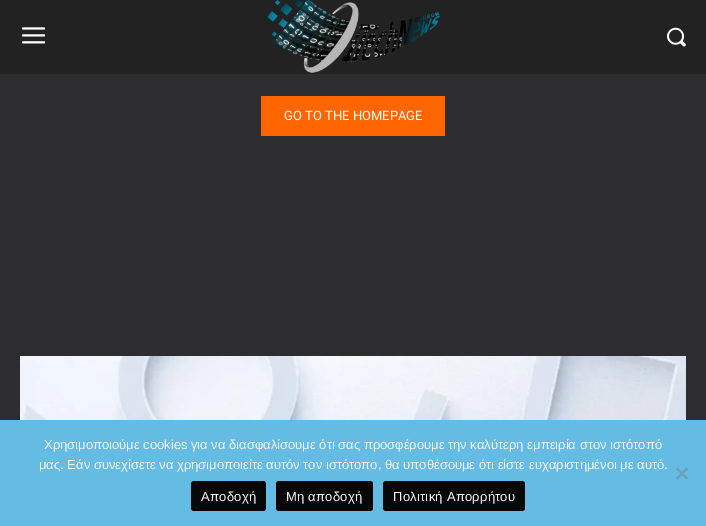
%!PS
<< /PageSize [706 526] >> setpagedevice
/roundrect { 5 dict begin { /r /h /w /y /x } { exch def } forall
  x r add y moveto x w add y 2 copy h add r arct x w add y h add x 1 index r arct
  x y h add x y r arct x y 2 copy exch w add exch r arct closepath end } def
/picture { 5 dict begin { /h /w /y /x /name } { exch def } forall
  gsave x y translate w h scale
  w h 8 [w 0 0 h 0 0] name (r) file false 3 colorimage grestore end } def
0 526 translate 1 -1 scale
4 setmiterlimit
0.176 0.176 0.192 setrgbcolor
0 0 706 526 rectfill
0.133 setgray
0 0 706 74 rectfill
(img1.rgb) 22 27 24 17 picture
(img2.rgb) 267 0 173 73 picture
(img3.rgb) 667 27 19 20 picture
1 0.396 0.004 setrgbcolor
261 96 184 40 rectfill
/Roboto-Regular [13 0 0 -13 0 0] selectfont
1 setgray
284 120 moveto (GO TO THE HOMEPAGE) show
(img4.rgb) 20 356 666 64 picture
0.392 0.733 0.89 setrgbcolor
0 420 706 106 rectfill
/LiberationSans-Regular [13 0 0 -13 0 0] selectfont
0.961 setgray
44 449 moveto (Χρησιμοποιούμε cookies για να διασφαλίσουμε ότι σας προσφέρουμε την καλύτερη εμπειρία στον ιστότοπό) show
39 469 moveto (μας. Εάν συνεχίσετε να χρησιμοποιείτε αυτόν τον ιστότοπο, θα υποθέσουμε ότι είστε ευχαριστημένοι με αυτό.) show
0.447 0.62 0.698 setrgbcolor
newpath 686.5 467.5 moveto 688 469 lineto 677.5 479.5 lineto 676 478 lineto closepath fill
newpath 676 469 moveto 677.5 467.5 lineto 688 478 lineto 686.5 479.5 lineto closepath fill
0.031 setgray
191 481 75 30 3 roundrect fill
0.961 setgray
201 501 moveto 0.25 0 (Αποδοχή) ashow
0.031 setgray
276 481 97 30 3 roundrect fill
0.961 setgray
286 501 moveto 0.25 0 (Μη αποδοχή) ashow
0.031 setgray
383 481 142 30 3 roundrect fill
0.961 setgray
393 501 moveto 0.25 0 (Πολιτική Aπορρήτου) ashow
showpage
